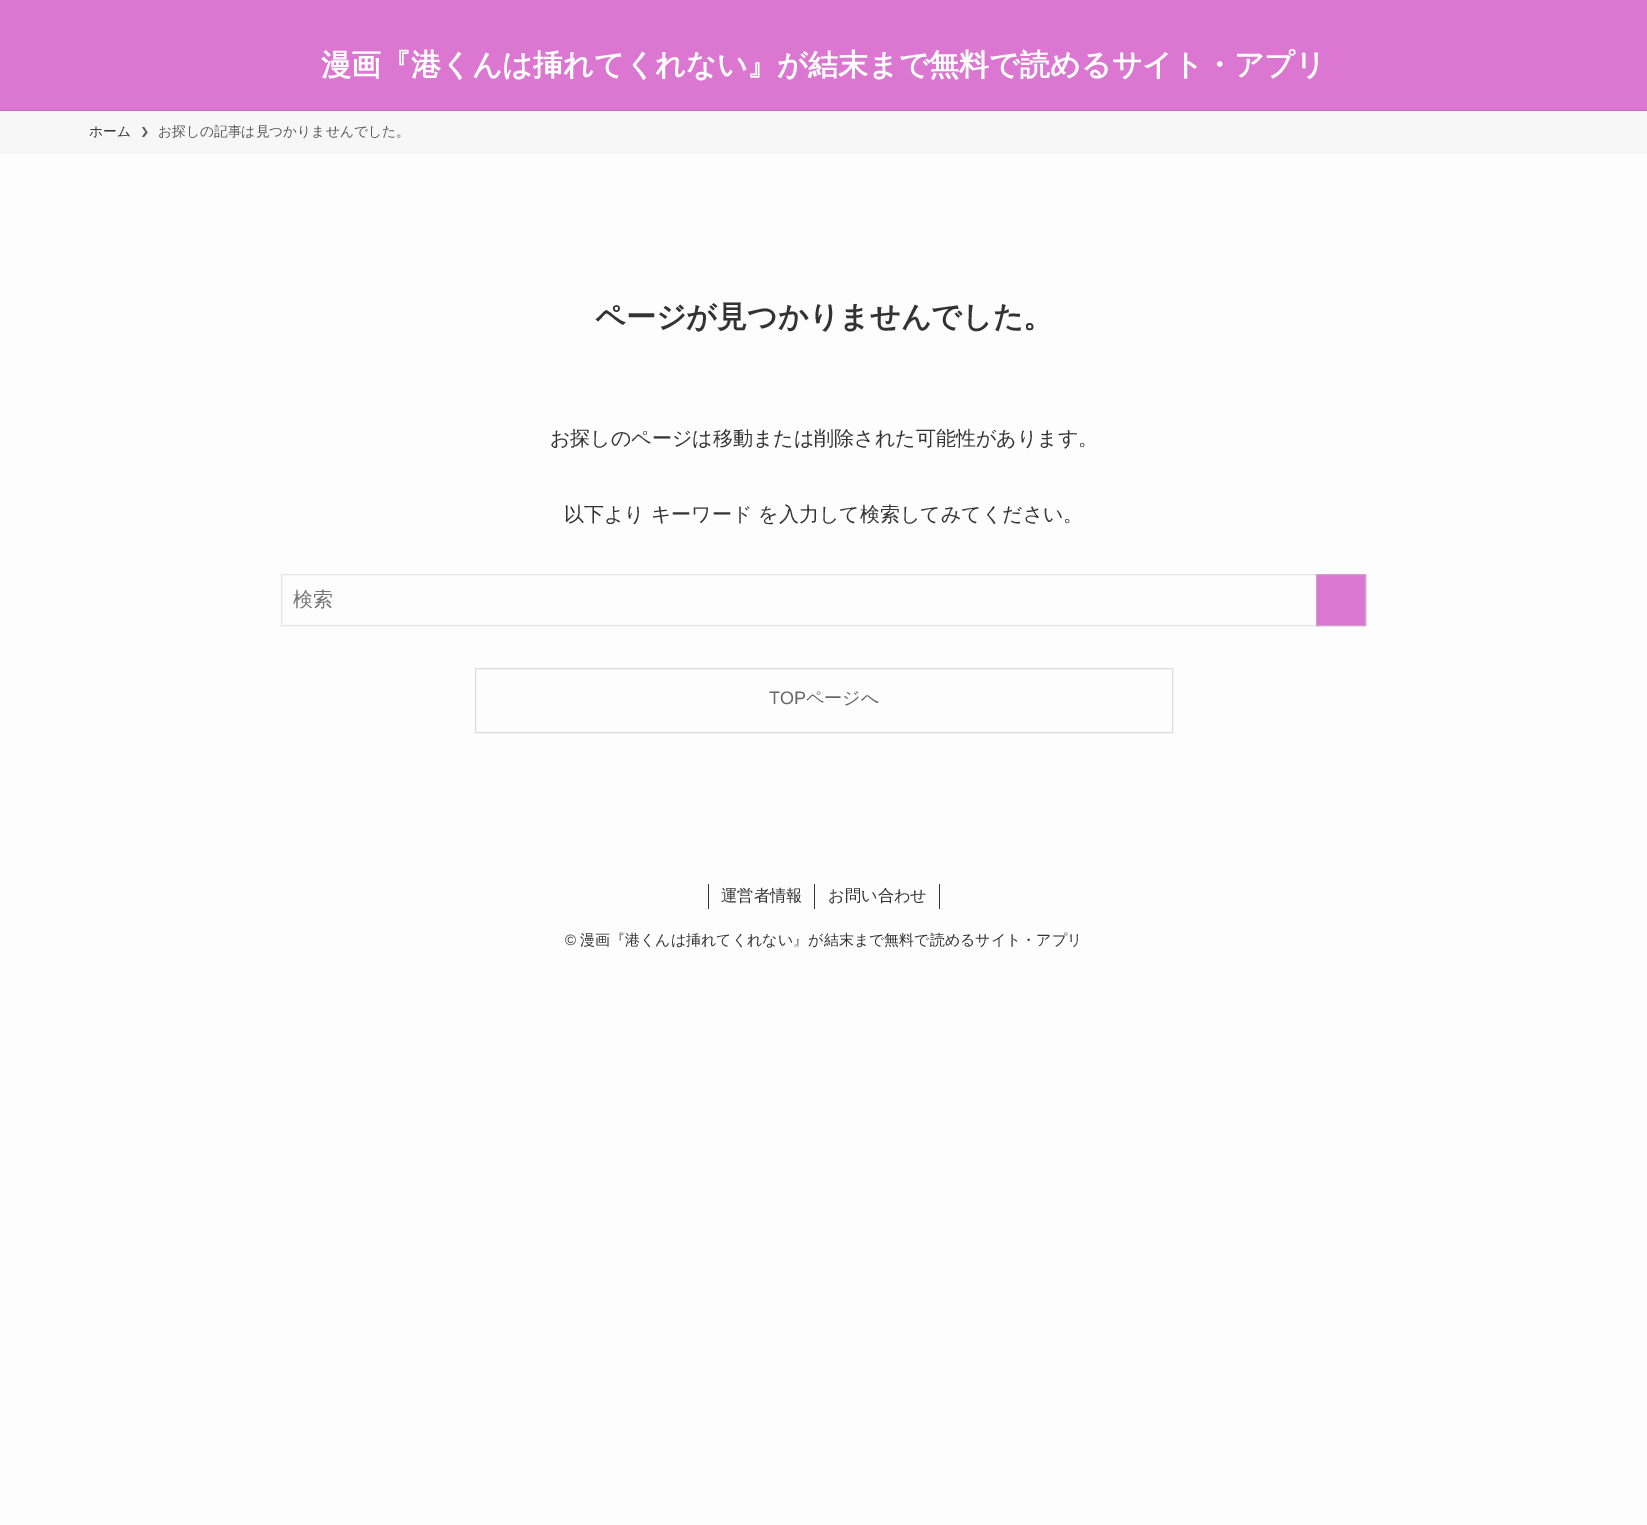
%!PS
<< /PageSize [1647 1525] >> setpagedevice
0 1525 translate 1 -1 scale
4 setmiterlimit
0.992 setgray
0 0 1647 1525 rectfill
0.859 0.463 0.82 setrgbcolor
0 0 1647 110 rectfill
0.773 0.416 0.737 setrgbcolor
0 110 1647 1 rectfill
/WenQuanYiZenHei-Bold [30 0 0 -30 0 0] selectfont
1 setgray
321 75 moveto (漫画『港くんは挿れてくれない』が結末まで無料で読めるサイト・アプリ) show
0.969 setgray
0 111 1647 43 rectfill
/WenQuanYiZenHei-Medium [13.75 0 0 -13.75 0 0] selectfont
0.2 setgray
89 136 moveto (ホーム) show
0.353 setgray
newpath 144 127 moveto 142 127 lineto 145.5 132 lineto 142 137 lineto 144 137 lineto 147.5 132.5 lineto closepath fill
158 136 moveto (お探しの記事は見つかりませんでした。) show
/WenQuanYiZenHei-Bold [30 0 0 -30 0 0] selectfont
0.2 setgray
595 327 moveto (ページが見つかりませんでした。) show
/WenQuanYiZenHei-Medium [20 0 0 -20 0 0] selectfont
550 445 moveto (お探しのページは移動または削除された可能性があります。) show
564 521 moveto (以下より キーワード を入力して検索してみてください。) show
0.89 setgray
281.5 574.5 1084 51 rectstroke
0.459 setgray
293 606 moveto (検索) show
0.859 0.463 0.82 setrgbcolor
newpath 1316.5 574.5 moveto 1365.5 574.5 lineto 1365.5 625.5 lineto 1316.5 625.5 lineto closepath gsave fill grestore
0.82 0.624 0.8 setrgbcolor
stroke
0.863 setgray
475.5 668.5 697 64 rectstroke
/LiberationSans-Regular [18 0 0 -18 0 0] selectfont
0.4 setgray
769 704 moveto (TOP) show
/WenQuanYiZenHei-Medium [18 0 0 -18 0 0] selectfont
806 704 moveto (ページへ) show
0.2 setgray
814 884 1 25 rectfill
708 884 1 25 rectfill
/WenQuanYiZenHei-Medium [16.25 0 0 -16.25 0 0] selectfont
721 901 moveto (運営者情報) show
939 884 1 25 rectfill
828 901 moveto (お問い合わせ) show
/LiberationSans-Regular [15 0 0 -15 0 0] selectfont
565 945 moveto (©) show
/WenQuanYiZenHei-Medium [15 0 0 -15 0 0] selectfont
580 945 moveto (漫画『港くんは挿れてくれない』が結末まで無料で読めるサイト・アプリ) show
showpage
